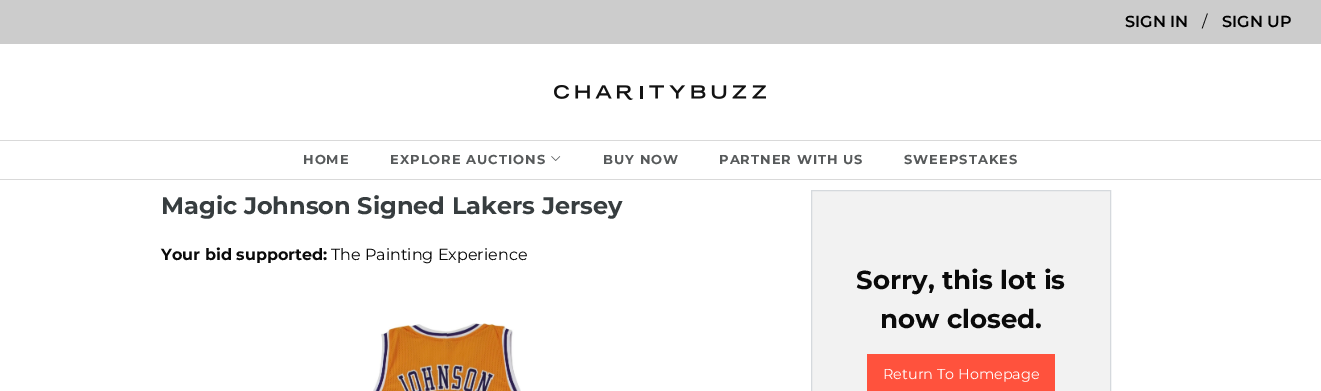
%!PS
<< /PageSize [1321 391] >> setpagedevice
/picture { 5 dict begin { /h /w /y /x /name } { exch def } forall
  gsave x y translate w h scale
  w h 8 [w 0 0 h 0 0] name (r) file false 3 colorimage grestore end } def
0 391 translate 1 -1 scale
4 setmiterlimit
1 setgray
0 0 1321 391 rectfill
0.8 setgray
0 0 1321 44 rectfill
/Montserrat-SemiBold [16 0 0 -16 0 0] selectfont
0 setgray
1125 27 moveto (SIGN IN) show
/Montserrat-Regular [16 0 0 -16 0 0] selectfont
0.039 setgray
1202 27 moveto (/) show
/Montserrat-SemiBold [16 0 0 -16 0 0] selectfont
0 setgray
1222 27 moveto (SIGN UP) show
(img1.rgb) 554 85 212 15 picture
0.851 setgray
0 140 1321 1 rectfill
0 179 1321 1 rectfill
/Montserrat-Bold [13 0 0 -13 0 0] selectfont
0.341 0.353 0.357 setrgbcolor
303 164 moveto 1 0 (HOME) ashow
390 164 moveto 1 0 (EXPLORE AUCTIONS) ashow
(img2.rgb) 551 156 10 5 picture
603 164 moveto 1 0 (BUY NOW) ashow
719 164 moveto 1 0 (PARTNER WITH US) ashow
904 164 moveto 1 0 (SWEEPSTAKES) ashow
/Montserrat-Bold [24 0 0 -24 0 0] selectfont
0.216 0.239 0.247 setrgbcolor
161 214 moveto (Magic Johnson Signed Lakers Jersey) show
/Montserrat-Bold [16 0 0 -16 0 0] selectfont
0.039 setgray
161 260 moveto (Your bid supported:) show
/Montserrat-Regular [16 0 0 -16 0 0] selectfont
331 260 moveto (The Painting Experience) show
(img3.rgb) 373 323 148 68 picture
0.949 setgray
newpath 811.5 190.5 moveto 1110.5 190.5 lineto 1110.5 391.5 lineto 811.5 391.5 lineto closepath gsave fill grestore
0.835 0.851 0.867 setrgbcolor
stroke
/Montserrat-Bold [26 0 0 -26 0 0] selectfont
0.039 setgray
856 289 moveto (Sorry, this lot is) show
880 328 moveto (now closed.) show
1 0.322 0.239 setrgbcolor
867 354 188 37 rectfill
/Montserrat-Regular [14.4 0 0 -14.4 0 0] selectfont
1 setgray
883 379 moveto (Return To Homepage) show
showpage
